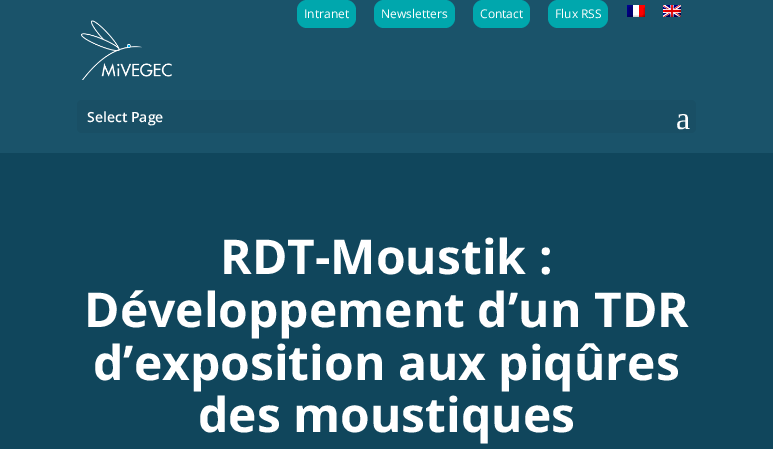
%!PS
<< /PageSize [773 449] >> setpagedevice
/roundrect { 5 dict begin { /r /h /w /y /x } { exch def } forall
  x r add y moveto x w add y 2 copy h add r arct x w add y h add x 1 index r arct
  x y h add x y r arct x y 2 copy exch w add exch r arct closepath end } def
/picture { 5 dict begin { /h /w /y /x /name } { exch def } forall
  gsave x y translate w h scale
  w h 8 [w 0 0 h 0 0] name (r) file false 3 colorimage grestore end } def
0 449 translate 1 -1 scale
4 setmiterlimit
0.063 0.275 0.361 setrgbcolor
0 0 773 449 rectfill
0.102 0.325 0.416 setrgbcolor
0 0 773 153 rectfill
0 0.655 0.678 setrgbcolor
297 0 59 28 10 roundrect fill
/OpenSans-Regular [12 0 0 -12 0 0] selectfont
1 setgray
304 18 moveto (Intranet) show
0 0.655 0.678 setrgbcolor
374 0 81 28 10 roundrect fill
1 setgray
381 18 moveto (Newsletters) show
0 0.655 0.678 setrgbcolor
473 0 57 28 10 roundrect fill
1 setgray
480 18 moveto (Contact) show
0 0.655 0.678 setrgbcolor
548 0 60 28 10 roundrect fill
1 setgray
555 18 moveto (Flux RSS) show
(img1.rgb) 627 5 18 12 picture
(img2.rgb) 663 5 18 12 picture
(img3.rgb) 81 20 91 60 picture
0.098 0.31 0.396 setrgbcolor
77 100 619 33 5 roundrect fill
/OpenSans-SemiBold [14 0 0 -14 0 0] selectfont
1 setgray
87 122 moveto (Select Page) show
/LiberationSerif-Regular [32 0 0 -32 0 0] selectfont
676 129 moveto (a) show
/OpenSans-Bold [48 0 0 -48 0 0] selectfont
220 274 moveto (RDT-Moustik :) show
84 327 moveto (Développement d’un TDR) show
93 380 moveto (d’exposition aux piqûres) show
198 432 moveto (des moustiques) show
showpage
